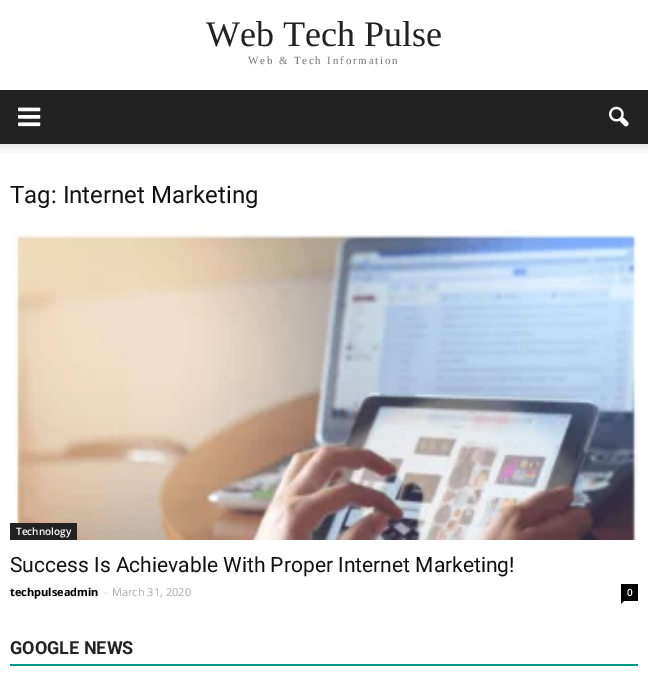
%!PS
<< /PageSize [648 682] >> setpagedevice
/picture { 5 dict begin { /h /w /y /x /name } { exch def } forall
  gsave x y translate w h scale
  w h 8 [w 0 0 h 0 0] name (r) file false 3 colorimage grestore end } def
0 682 translate 1 -1 scale
4 setmiterlimit
1 setgray
0 0 648 682 rectfill
/LiberationSerif-Regular [36 0 0 -36 0 0] selectfont
0.133 setgray
206 46 moveto (Web Tech Pulse) show
/LiberationSerif-Regular [11 0 0 -11 0 0] selectfont
0.467 setgray
248 64 moveto 1.8 0 (Web & Tech Information) ashow
0.133 setgray
0 90 648 54 rectfill
(img1.rgb) 18 107 23 20 picture
(img2.rgb) 609 106 20 21 picture
(img3.rgb) 0 144 648 9 picture
/Roboto-Regular [24 0 0 -24 0 0] selectfont
0.067 setgray
10 203 moveto (Tag: Internet Marketing) show
(img4.rgb) 13 230 625 310 picture
0.133 setgray
10 523 67 17 rectfill
/OpenSans-SemiBold [10 0 0 -10 0 0] selectfont
1 setgray
16 535 moveto (Technology) show
/Roboto-Regular [21 0 0 -21 0 0] selectfont
0.067 setgray
10 572 moveto (Success Is Achievable With Proper Internet Marketing!) show
/OpenSans-Bold [11 0 0 -11 0 0] selectfont
0 setgray
10 596 moveto (techpulseadmin) show
/OpenSans-Regular [11 0 0 -11 0 0] selectfont
0.8 setgray
104 596 moveto (-) show
0.667 setgray
112 596 moveto (March 31, 2020) show
0 setgray
621 584 17 17 rectfill
/OpenSans-SemiBold [10 0 0 -10 0 0] selectfont
1 setgray
627 596 moveto (0) show
0 setgray
newpath 621 601 moveto 624 601 lineto 621 604 lineto closepath fill
0 0.588 0.533 setrgbcolor
10 664 628 2 rectfill
/Roboto-Bold [18 0 0 -18 0 0] selectfont
0.133 setgray
10 654 moveto (GOOGLE NEWS) show
showpage
